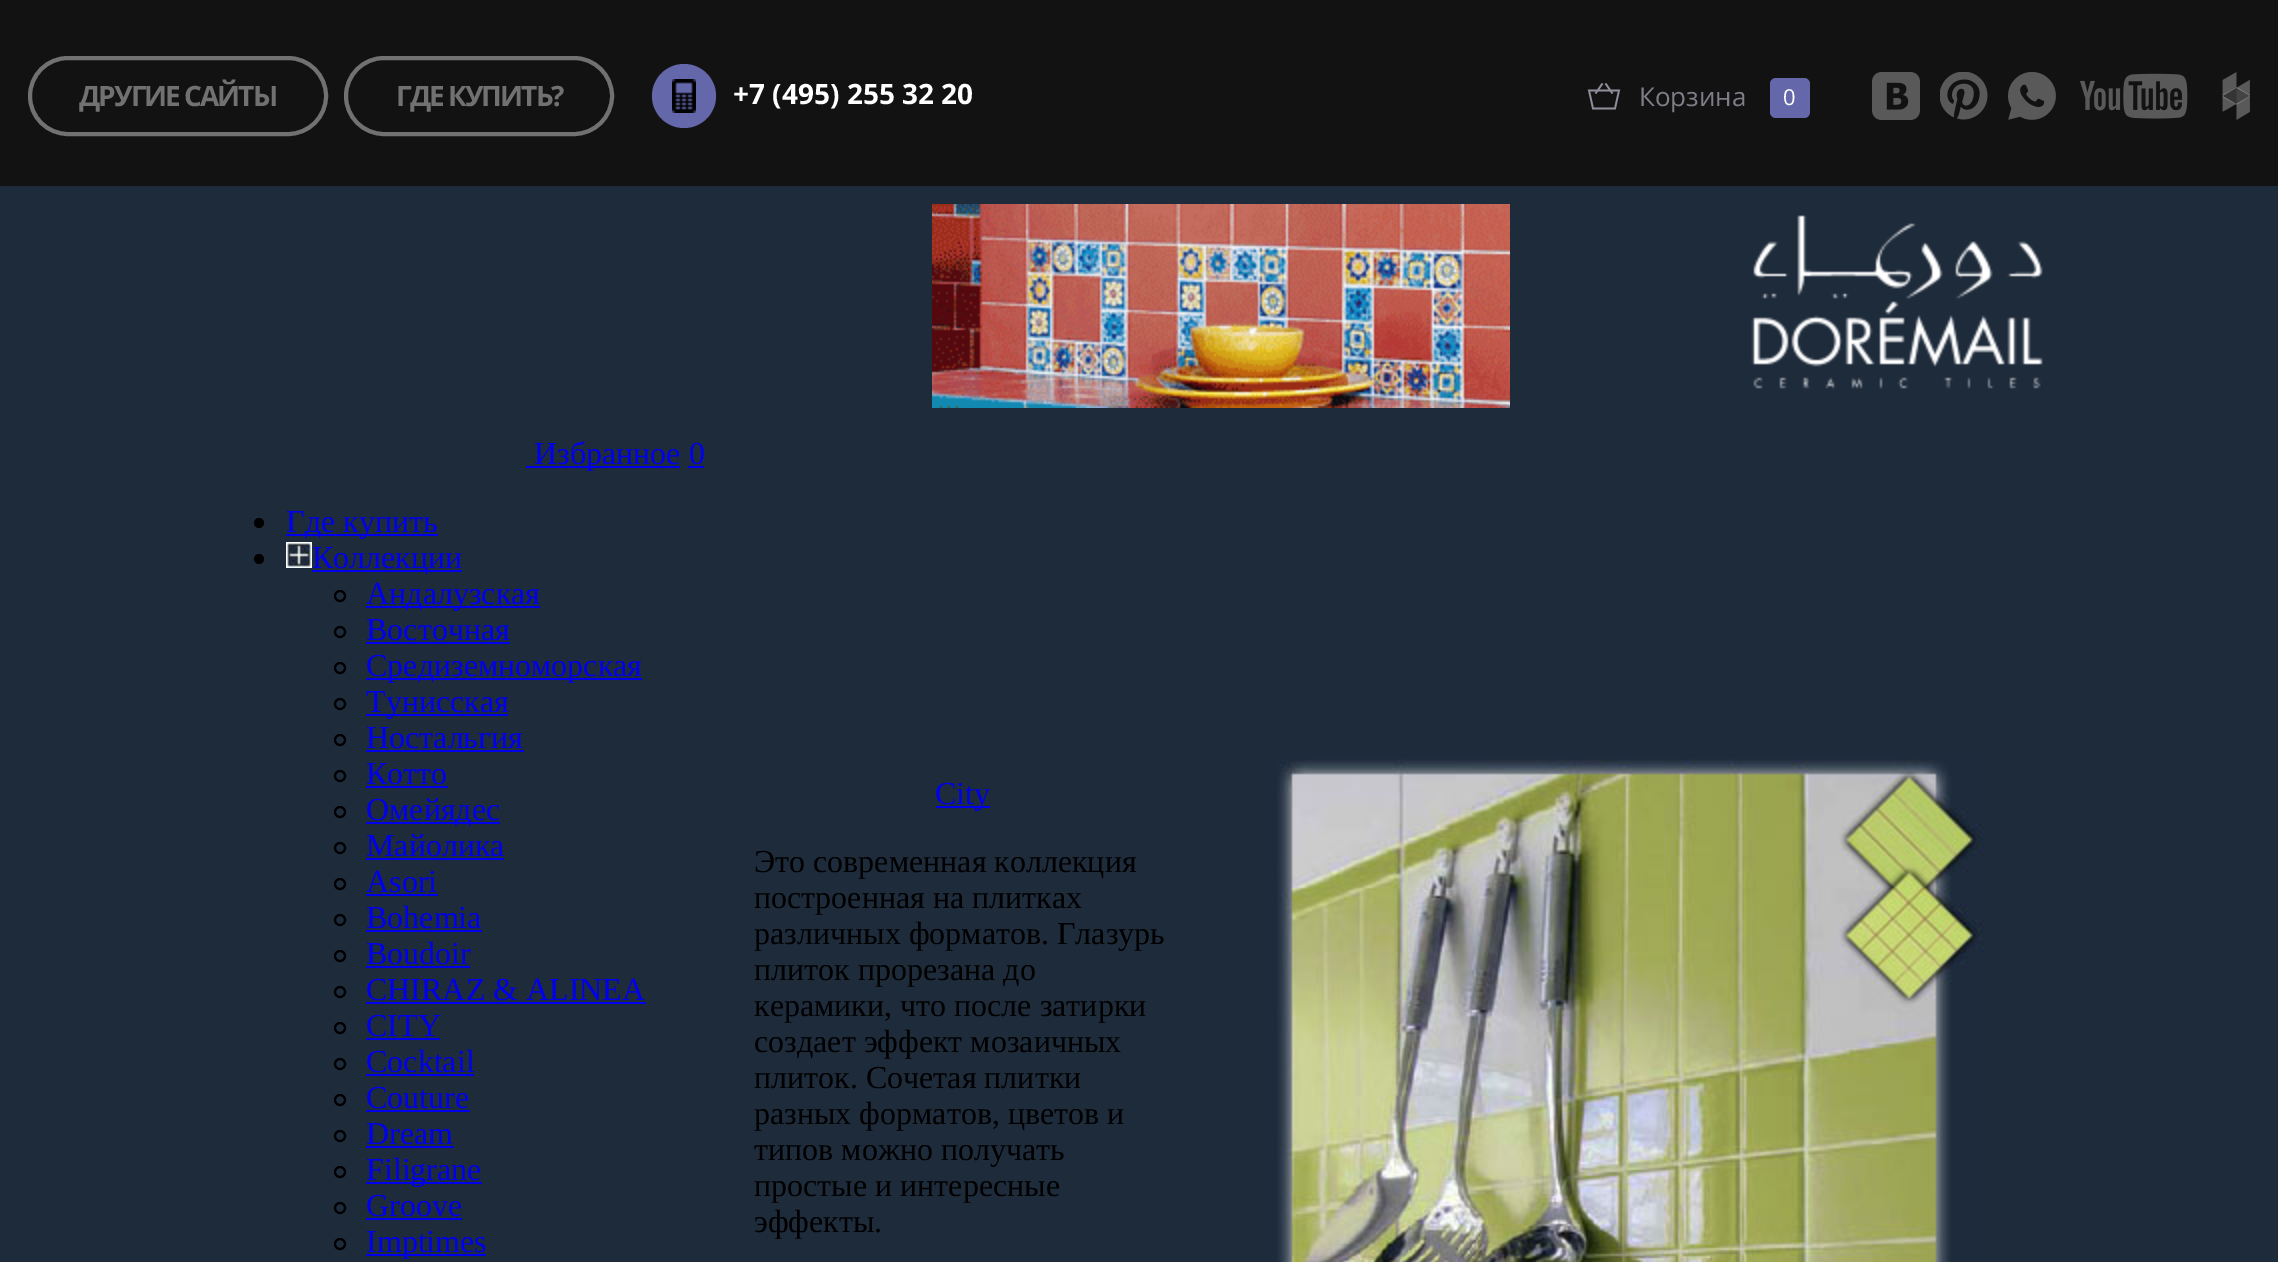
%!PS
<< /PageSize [2278 1262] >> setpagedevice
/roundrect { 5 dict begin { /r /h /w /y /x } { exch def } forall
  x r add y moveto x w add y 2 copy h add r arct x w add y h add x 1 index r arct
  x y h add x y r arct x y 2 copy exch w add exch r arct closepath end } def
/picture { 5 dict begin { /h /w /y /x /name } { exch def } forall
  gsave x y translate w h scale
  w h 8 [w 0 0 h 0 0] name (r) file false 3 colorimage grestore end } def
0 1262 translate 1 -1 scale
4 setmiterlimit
0.118 0.169 0.231 setrgbcolor
0 0 2278 1262 rectfill
0.071 setgray
0 0 2278 186 rectfill
0.443 setgray
4 setlinewidth
30 58 296 76 38 roundrect stroke
/OpenSans-Bold [28 0 0 -28 0 0] selectfont
79 106 moveto -2 0 (ДРУГИЕ САЙТЫ) ashow
346 58 266 76 38 roundrect stroke
396 106 moveto -2 0 (ГДЕ КУПИТЬ?) ashow
0.392 0.404 0.667 setrgbcolor
newpath 684 96 32 0 360 arc closepath fill
(img1.rgb) 672 79 24 34 picture
1 setgray
733 104 moveto (+7 \(495\) 255 32 20) show
0.557 0.557 0.604 setrgbcolor
1.7 setlinewidth
newpath 1615 108.5 moveto 1593 108.5 lineto 1589 90.5 lineto 1619 90.5 lineto closepath 1605.5 83.5 moveto 1612.5 93.5 lineto 1595.5 93.5 moveto 1602.5 83.5 lineto stroke
/OpenSans-Regular [26 0 0 -26 0 0] selectfont
0.494 0.494 0.525 setrgbcolor
1639 106 moveto (Корзина) show
0.392 0.404 0.667 setrgbcolor
1770 78 40 40 6 roundrect fill
/OpenSans-Regular [22 0 0 -22 0 0] selectfont
1 setgray
1783 105 moveto (0) show
(img2.rgb) 1872 72 48 48 picture
(img3.rgb) 1940 72 48 48 picture
(img4.rgb) 2008 72 48 48 picture
(img5.rgb) 2080 73 108 46 picture
(img6.rgb) 2222 72 28 48 picture
(img7.rgb) 932 204 578 204 picture
(img8.rgb) 1751 215 292 174 picture
0 0 0.933 setrgbcolor
526 466 154 2 rectfill
/LiberationSerif-Regular [32 0 0 -32 0 0] selectfont
534 464 moveto (Избранное 0) show
688 466 16 2 rectfill
0 setgray
newpath 259 523 5 0 360 arc closepath fill
0 0 0.933 setrgbcolor
286 534 152 2 rectfill
286 532 moveto (Где купить) show
0 setgray
newpath 259 559 5 0 360 arc closepath fill
(img9.rgb) 286 542 26 26 picture
0 0 0.933 setrgbcolor
312 570 150 2 rectfill
312 568 moveto (Коллекции) show
0 setgray
2 setlinewidth
newpath 340 596 5 0 360 arc closepath stroke
0 0 0.933 setrgbcolor
366 606 174 2 rectfill
366 604 moveto (Андалузская) show
0 setgray
newpath 340 632 5 0 360 arc closepath stroke
0 0 0.933 setrgbcolor
366 640 moveto (Восточная) show
366 642 144 2 rectfill
0 setgray
newpath 340 668 5 0 360 arc closepath stroke
0 0 0.933 setrgbcolor
366 678 276 2 rectfill
366 676 moveto (Средиземноморская) show
0 setgray
newpath 340 704 5 0 360 arc closepath stroke
0 0 0.933 setrgbcolor
366 714 142 2 rectfill
366 712 moveto (Тунисская) show
0 setgray
newpath 340 740 5 0 360 arc closepath stroke
0 0 0.933 setrgbcolor
366 748 moveto (Ностальгия) show
366 750 158 2 rectfill
0 setgray
newpath 340 776 5 0 360 arc closepath stroke
0 0 0.933 setrgbcolor
366 784 moveto (Котто) show
366 786 82 2 rectfill
0 setgray
newpath 340 812 5 0 360 arc closepath stroke
0 0 0.933 setrgbcolor
366 822 134 2 rectfill
366 820 moveto (Омейядес) show
0 setgray
newpath 340 848 5 0 360 arc closepath stroke
0 0 0.933 setrgbcolor
366 856 moveto (Майолика) show
366 858 138 2 rectfill
0 setgray
newpath 340 884 5 0 360 arc closepath stroke
0 0 0.933 setrgbcolor
366 892 moveto (Asori) show
366 894 72 2 rectfill
0 setgray
newpath 340 920 5 0 360 arc closepath stroke
0 0 0.933 setrgbcolor
366 928 moveto (Bohemia) show
366 930 116 2 rectfill
0 setgray
newpath 340 956 5 0 360 arc closepath stroke
0 0 0.933 setrgbcolor
366 964 moveto (Boudoir) show
366 966 104 2 rectfill
0 setgray
newpath 340 992 5 0 360 arc closepath stroke
0 0 0.933 setrgbcolor
366 1000 moveto (CHIRAZ & ALINEA) show
366 1002 280 2 rectfill
0 setgray
newpath 340 1028 5 0 360 arc closepath stroke
0 0 0.933 setrgbcolor
366 1036 moveto (CITY) show
366 1038 74 2 rectfill
0 setgray
newpath 340 1064 5 0 360 arc closepath stroke
0 0 0.933 setrgbcolor
366 1072 moveto (Cocktail) show
366 1074 108 2 rectfill
0 setgray
newpath 340 1100 5 0 360 arc closepath stroke
0 0 0.933 setrgbcolor
366 1108 moveto (Couture) show
366 1110 104 2 rectfill
0 setgray
newpath 340 1136 5 0 360 arc closepath stroke
0 0 0.933 setrgbcolor
366 1144 moveto (Dream) show
366 1146 88 2 rectfill
0 setgray
newpath 340 1172 5 0 360 arc closepath stroke
0 0 0.933 setrgbcolor
366 1182 116 2 rectfill
366 1180 moveto (Filigrane) show
0 setgray
newpath 340 1208 5 0 360 arc closepath stroke
0 0 0.933 setrgbcolor
366 1216 moveto (Groove) show
366 1218 96 2 rectfill
0 setgray
newpath 340 1244 5 0 360 arc closepath stroke
0 0 0.933 setrgbcolor
366 1254 120 2 rectfill
366 1252 moveto (Imptimes) show
936 806 54 2 rectfill
935 804 moveto (City) show
0 setgray
754 872 moveto (Это современная коллекция) show
754 908 moveto (построенная на плитках) show
754 944 moveto (различных форматов. Глазурь) show
754 980 moveto (плиток прорезана до) show
754 1016 moveto (керамики, что после затирки) show
754 1052 moveto (создает эффект мозаичных) show
754 1088 moveto (плиток. Сочетая плитки) show
754 1124 moveto (разных форматов, цветов и) show
754 1160 moveto (типов можно получать) show
754 1196 moveto (простые и интересные) show
754 1232 moveto (эффекты.) show
(img10.rgb) 1277 759 707 503 picture
showpage
